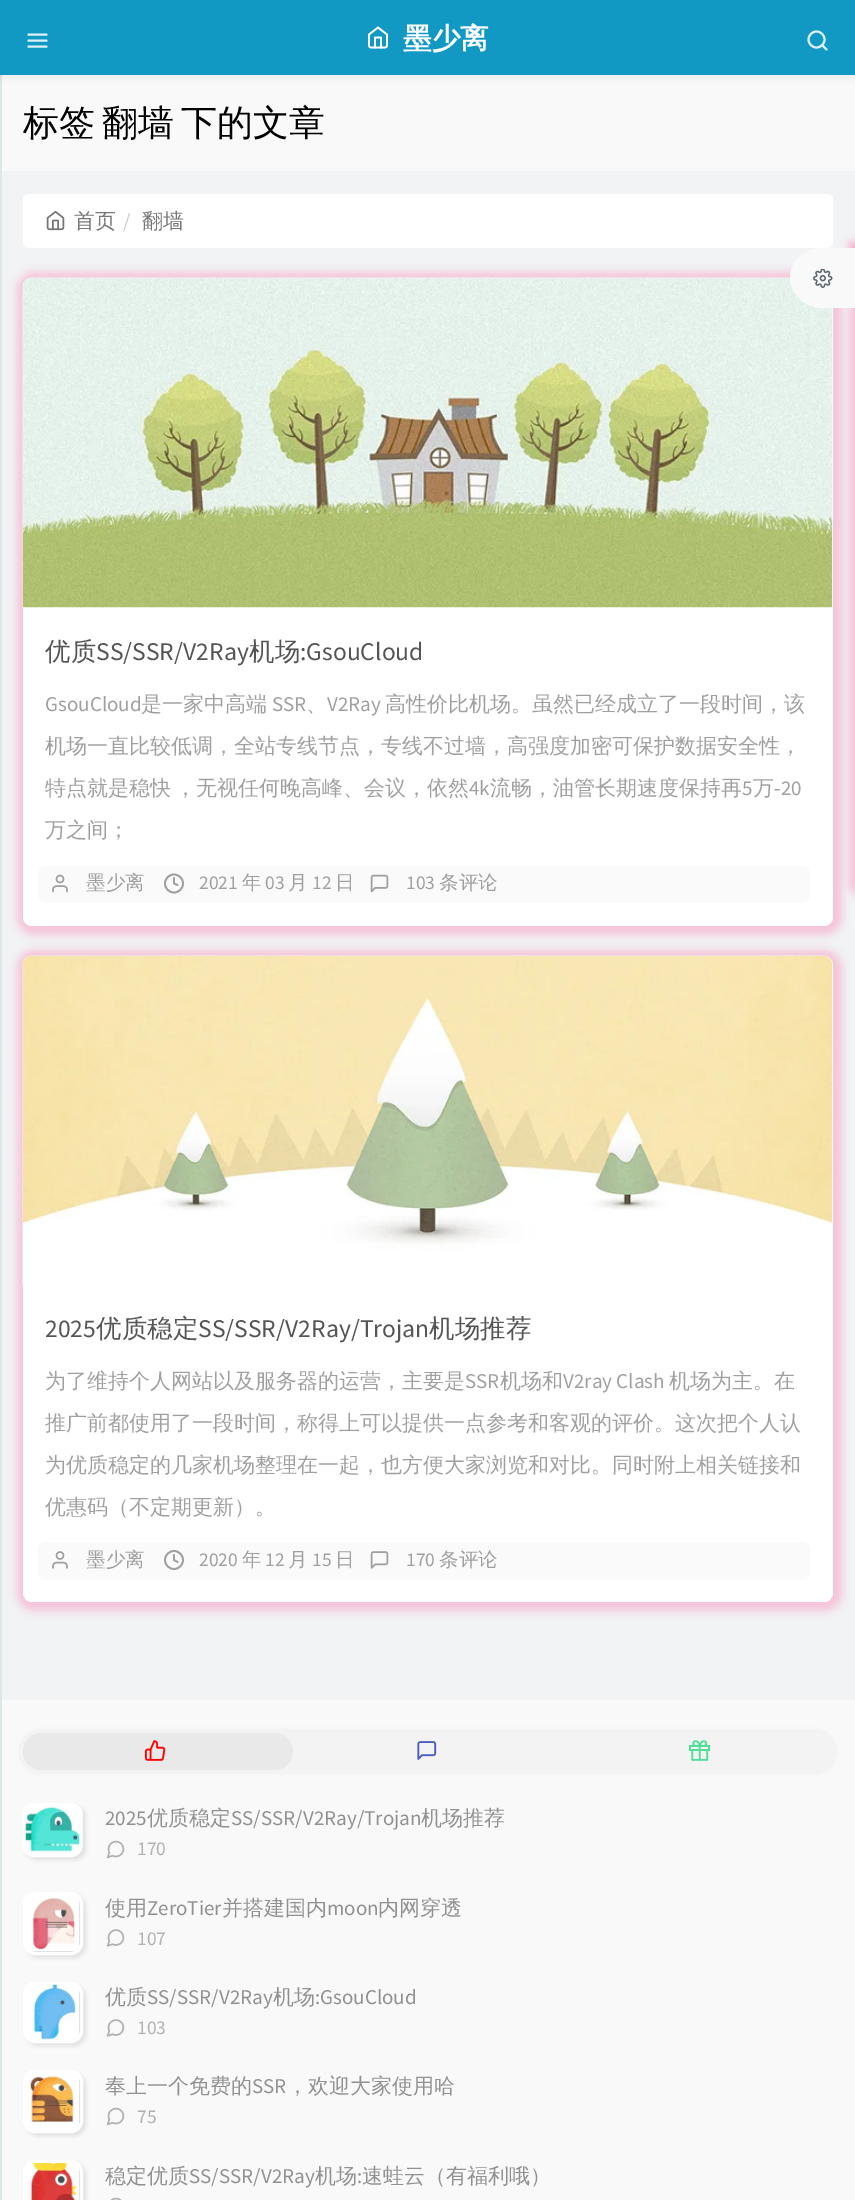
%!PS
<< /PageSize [855 2200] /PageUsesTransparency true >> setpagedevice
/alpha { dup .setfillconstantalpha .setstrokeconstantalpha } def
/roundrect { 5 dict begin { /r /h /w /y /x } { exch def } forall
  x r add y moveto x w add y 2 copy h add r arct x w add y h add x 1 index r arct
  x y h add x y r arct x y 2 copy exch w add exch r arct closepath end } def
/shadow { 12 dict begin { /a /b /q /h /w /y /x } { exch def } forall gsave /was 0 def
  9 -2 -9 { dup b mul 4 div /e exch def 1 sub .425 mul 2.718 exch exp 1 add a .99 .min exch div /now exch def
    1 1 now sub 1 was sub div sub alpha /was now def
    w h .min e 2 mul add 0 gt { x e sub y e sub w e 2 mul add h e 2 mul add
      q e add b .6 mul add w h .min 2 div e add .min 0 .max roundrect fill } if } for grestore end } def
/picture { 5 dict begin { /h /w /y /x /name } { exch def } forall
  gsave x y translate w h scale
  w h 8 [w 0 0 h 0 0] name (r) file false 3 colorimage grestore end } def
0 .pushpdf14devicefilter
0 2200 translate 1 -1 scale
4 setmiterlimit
0.976 setgray
0 0 855 2200 rectfill
0.867 0.902 0.914 setrgbcolor
0 75 2 2125 rectfill
0 setgray
-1 0 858 78 0 4 0.05 shadow
0.067 0.6 0.769 setrgbcolor
0 0 855 75 rectfill
0.863 0.949 0.973 setrgbcolor
2 setlinewidth
1 setlinecap
1 setlinejoin
newpath 28.5 40.5 moveto 46.5 40.5 lineto 28.5 34.5 moveto 46.5 34.5 lineto 28.5 46.5 moveto 46.5 46.5 lineto stroke
(img1.rgb) 368 26 20 23 picture
/WenQuanYiZenHei-Bold [28.5 0 0 -28.5 0 0] selectfont
1 setgray
403 48 moveto (墨少离) show
0.863 0.949 0.973 setrgbcolor
0 setlinecap
0 setlinejoin
newpath 816.5 39.5 8 0 360 arc closepath stroke
1 setlinecap
1 setlinejoin
newpath 826.5 49.5 moveto 822 45 lineto stroke
0.945 0.953 0.957 setrgbcolor
2 171 853 1529 rectfill
/WenQuanYiZenHei-Medium [36 0 0 -36 0 0] selectfont
0 setgray
23 135 moveto -4 0 32 (标签 翻墙 下的文章) widthshow
1 setgray
23 194 810 54 6 roundrect fill
(img2.rgb) 46 210 19 21 picture
/WenQuanYiZenHei-Medium [21 0 0 -21 0 0] selectfont
0.467 setgray
74 228 moveto (首页) show
/SourceSansPro-Regular [21 0 0 -21 0 0] selectfont
0.8 setgray
123 228 moveto (/) show
/WenQuanYiZenHei-Medium [21 0 0 -21 0 0] selectfont
0.467 setgray
142 228 moveto (翻墙) show
1 0.439 0.678 setrgbcolor
17 272 825 663 17 4 0.35 shadow
1 setgray
23 278 810 648 9 roundrect fill
(img3.rgb) 22 277 811 331 picture
/WenQuanYiZenHei-Medium [25.5 0 0 -25.5 0 0] selectfont
0.333 setgray
45 660 moveto (优质) show
/SourceSansPro-Regular [25.5 0 0 -25.5 0 0] selectfont
96 660 moveto (SS/SSR/V2Ray) show
/WenQuanYiZenHei-Medium [25.5 0 0 -25.5 0 0] selectfont
249 660 moveto (机场) show
/SourceSansPro-Regular [25.5 0 0 -25.5 0 0] selectfont
300 660 moveto (:GsouCloud) show
/SourceSansPro-Regular [21 0 0 -21 0 0] selectfont
0.627 setgray
45 711 moveto (GsouCloud) show
/WenQuanYiZenHei-Medium [21 0 0 -21 0 0] selectfont
141 711 moveto (是一家中高端) show
/SourceSansPro-Regular [21 0 0 -21 0 0] selectfont
272 711 moveto (SSR) show
/WenQuanYiZenHei-Medium [21 0 0 -21 0 0] selectfont
306 711 moveto (、) show
/SourceSansPro-Regular [21 0 0 -21 0 0] selectfont
327 711 moveto (V2Ray) show
/WenQuanYiZenHei-Medium [21 0 0 -21 0 0] selectfont
385 711 moveto (高性价比机场。虽然已经成立了一段时间，该) show
45 753 moveto (机场一直比较低调，全站专线节点，专线不过墙，高强度加密可保护数据安全性，) show
45 795 moveto -2 0 32 (特点就是稳快 ，无视任何晚高峰、会议，依然) widthshow
/SourceSansPro-Regular [21 0 0 -21 0 0] selectfont
469 795 moveto (4k) show
/WenQuanYiZenHei-Medium [21 0 0 -21 0 0] selectfont
490 795 moveto (流畅，油管长期速度保持再) show
/SourceSansPro-Regular [21 0 0 -21 0 0] selectfont
742 795 moveto (5) show
/WenQuanYiZenHei-Medium [21 0 0 -21 0 0] selectfont
753 795 moveto (万) show
/SourceSansPro-Regular [21 0 0 -21 0 0] selectfont
774 795 moveto (-20) show
/WenQuanYiZenHei-Medium [21 0 0 -21 0 0] selectfont
45 837 moveto (万之间；) show
0.98 setgray
38 866 772 37 8 roundrect fill
(img4.rgb) 52 874 16 19 picture
/WenQuanYiZenHei-Medium [19.5 0 0 -19.5 0 0] selectfont
0.627 setgray
86 889 moveto (墨少离) show
1.8 setlinewidth
0 setlinecap
0 setlinejoin
newpath 174 883.5 9 0 360 arc closepath stroke
/SourceSansPro-Regular [19.5 0 0 -19.5 0 0] selectfont
199 889 moveto (2021) show
/WenQuanYiZenHei-Medium [19.5 0 0 -19.5 0 0] selectfont
242 889 moveto (年) show
/SourceSansPro-Regular [19.5 0 0 -19.5 0 0] selectfont
265 889 moveto (03) show
/WenQuanYiZenHei-Medium [19.5 0 0 -19.5 0 0] selectfont
288 889 moveto (月) show
/SourceSansPro-Regular [19.5 0 0 -19.5 0 0] selectfont
312 889 moveto (12) show
/WenQuanYiZenHei-Medium [19.5 0 0 -19.5 0 0] selectfont
335 889 moveto (日) show
1 setlinecap
1 setlinejoin
newpath 174 878 moveto 174 883.5 lineto 177.5 885 lineto stroke
(img5.rgb) 370 874 19 19 picture
/SourceSansPro-Regular [19.5 0 0 -19.5 0 0] selectfont
406 889 moveto (103) show
/WenQuanYiZenHei-Medium [19.5 0 0 -19.5 0 0] selectfont
439 889 moveto (条评论) show
1 0.439 0.678 setrgbcolor
17 950 825 661 17 4 0.35 shadow
1 setgray
23 956 810 646 9 roundrect fill
(img6.rgb) 22 955 811 330 picture
/SourceSansPro-Regular [25.5 0 0 -25.5 0 0] selectfont
0.333 setgray
45 1337 moveto (2025) show
/WenQuanYiZenHei-Medium [25.5 0 0 -25.5 0 0] selectfont
96 1337 moveto (优质稳定) show
/SourceSansPro-Regular [25.5 0 0 -25.5 0 0] selectfont
198 1337 moveto (SS/SSR/V2Ray/Trojan) show
gsave
45 1316 486 28 rectclip
/WenQuanYiZenHei-Medium [25.5 0 0 -25.5 0 0] selectfont
429 1337 moveto (机场推荐) show
grestore
/WenQuanYiZenHei-Medium [21 0 0 -21 0 0] selectfont
0.627 setgray
45 1388 moveto (为了维持个人网站以及服务器的运营，主要是) show
/SourceSansPro-Regular [21 0 0 -21 0 0] selectfont
465 1388 moveto (SSR) show
/WenQuanYiZenHei-Medium [21 0 0 -21 0 0] selectfont
500 1388 moveto (机场和) show
/SourceSansPro-Regular [21 0 0 -21 0 0] selectfont
563 1388 moveto (V2ray Clash) show
/WenQuanYiZenHei-Medium [21 0 0 -21 0 0] selectfont
669 1388 moveto (机场为主。在) show
45 1430 moveto (推广前都使用了一段时间，称得上可以提供一点参考和客观的评价。这次把个人认) show
45 1472 moveto (为优质稳定的几家机场整理在一起，也方便大家浏览和对比。同时附上相关链接和) show
45 1514 moveto (优惠码（不定期更新）。) show
0.98 setgray
38 1542 772 38 8 roundrect fill
(img7.rgb) 52 1551 16 18 picture
/WenQuanYiZenHei-Medium [19.5 0 0 -19.5 0 0] selectfont
0.627 setgray
86 1566 moveto (墨少离) show
0 setlinecap
0 setlinejoin
newpath 174 1560 9 0 360 arc closepath stroke
/SourceSansPro-Regular [19.5 0 0 -19.5 0 0] selectfont
199 1566 moveto (2020) show
/WenQuanYiZenHei-Medium [19.5 0 0 -19.5 0 0] selectfont
242 1566 moveto (年) show
/SourceSansPro-Regular [19.5 0 0 -19.5 0 0] selectfont
265 1566 moveto (12) show
/WenQuanYiZenHei-Medium [19.5 0 0 -19.5 0 0] selectfont
288 1566 moveto (月) show
/SourceSansPro-Regular [19.5 0 0 -19.5 0 0] selectfont
312 1566 moveto (15) show
/WenQuanYiZenHei-Medium [19.5 0 0 -19.5 0 0] selectfont
335 1566 moveto (日) show
1 setlinecap
1 setlinejoin
newpath 174 1555 moveto 174 1560 lineto 177.5 1562 lineto stroke
(img8.rgb) 370 1551 19 18 picture
/SourceSansPro-Regular [19.5 0 0 -19.5 0 0] selectfont
406 1566 moveto (170) show
/WenQuanYiZenHei-Medium [19.5 0 0 -19.5 0 0] selectfont
439 1566 moveto (条评论) show
0 setgray
20 1730 816 43 21.5 2 0.05 shadow
0.953 setgray
20 1730 816 43 21.5 roundrect fill
0.914 setgray
23 1733 270 37 18.5 roundrect fill
(img9.rgb) 144 1740 22 21 picture
(img10.rgb) 417 1741 20 19 picture
(img11.rgb) 689 1740 21 21 picture
0.882 setgray
26 1806 60 54 11 2 1 shadow
1 setgray
3 setlinewidth
0 setlinecap
0 setlinejoin
newpath 34.5 1804.5 moveto 70.5 1804.5 lineto 76.5 1804.5 81 1808.5 81 1814 curveto 81 1846 lineto 81 1851.5 76.5 1855.5 70.5 1855.5 curveto 34.5 1855.5 lineto 28.5 1855.5 24 1851.5 24 1846 curveto 24 1814 lineto 24 1808.5 28.5 1804.5 34.5 1804.5 curveto closepath stroke
(img12.rgb) 25 1806 55 48 picture
/SourceSansPro-Regular [21 0 0 -21 0 0] selectfont
0.569 setgray
105 1825 moveto (2025) show
/WenQuanYiZenHei-Medium [21 0 0 -21 0 0] selectfont
147 1825 moveto (优质稳定) show
/SourceSansPro-Regular [21 0 0 -21 0 0] selectfont
231 1825 moveto (SS/SSR/V2Ray/Trojan) show
/WenQuanYiZenHei-Medium [21 0 0 -21 0 0] selectfont
421 1825 moveto (机场推荐) show
(img13.rgb) 106 1840 19 19 picture
/SourceSansPro-Regular [19.5 0 0 -19.5 0 0] selectfont
0.698 setgray
137 1855 moveto (170) show
0.882 setgray
26 1895 60 63 12 2 1 shadow
1 setgray
24.5 1893.5 57 60 10.5 roundrect stroke
(img14.rgb) 26 1895 53 56 picture
/WenQuanYiZenHei-Medium [21 0 0 -21 0 0] selectfont
0.569 setgray
105 1915 moveto (使用) show
/SourceSansPro-Regular [21 0 0 -21 0 0] selectfont
147 1915 moveto (ZeroTier) show
/WenQuanYiZenHei-Medium [21 0 0 -21 0 0] selectfont
222 1915 moveto (并搭建国内) show
/SourceSansPro-Regular [21 0 0 -21 0 0] selectfont
327 1915 moveto (moon) show
/WenQuanYiZenHei-Medium [21 0 0 -21 0 0] selectfont
378 1915 moveto (内网穿透) show
(img15.rgb) 106 1929 19 18 picture
/SourceSansPro-Regular [19.5 0 0 -19.5 0 0] selectfont
0.698 setgray
137 1945 moveto (107) show
0.882 setgray
26 1985 60 61 12 2 1 shadow
1 setgray
24.5 1983.5 57 58 10.5 roundrect stroke
(img16.rgb) 26 1984 53 56 picture
/WenQuanYiZenHei-Medium [21 0 0 -21 0 0] selectfont
0.569 setgray
105 2004 moveto (优质) show
/SourceSansPro-Regular [21 0 0 -21 0 0] selectfont
147 2004 moveto (SS/SSR/V2Ray) show
/WenQuanYiZenHei-Medium [21 0 0 -21 0 0] selectfont
273 2004 moveto (机场) show
/SourceSansPro-Regular [21 0 0 -21 0 0] selectfont
315 2004 moveto (:GsouCloud) show
(img15.rgb) 106 2019 19 18 picture
/SourceSansPro-Regular [19.5 0 0 -19.5 0 0] selectfont
0.698 setgray
137 2034 moveto (103) show
0.882 setgray
26 2073 60 63 12 2 1 shadow
1 setgray
24.5 2071.5 57 60 10.5 roundrect stroke
(img17.rgb) 26 2073 53 57 picture
/WenQuanYiZenHei-Medium [21 0 0 -21 0 0] selectfont
0.569 setgray
105 2093 moveto (奉上一个免费的) show
/SourceSansPro-Regular [21 0 0 -21 0 0] selectfont
252 2093 moveto (SSR) show
/WenQuanYiZenHei-Medium [21 0 0 -21 0 0] selectfont
287 2093 moveto (，欢迎大家使用哈) show
(img13.rgb) 106 2107 19 19 picture
/SourceSansPro-Regular [19.5 0 0 -19.5 0 0] selectfont
0.698 setgray
137 2123 moveto (75) show
0.882 setgray
26 2163 60 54 11 2 1 shadow
1 setgray
24.5 2161.5 57 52 10.5 roundrect stroke
(img18.rgb) 26 2163 53 37 picture
/WenQuanYiZenHei-Medium [21 0 0 -21 0 0] selectfont
0.569 setgray
105 2183 moveto (稳定优质) show
/SourceSansPro-Regular [21 0 0 -21 0 0] selectfont
189 2183 moveto (SS/SSR/V2Ray) show
/WenQuanYiZenHei-Medium [21 0 0 -21 0 0] selectfont
315 2183 moveto (机场) show
/SourceSansPro-Regular [21 0 0 -21 0 0] selectfont
357 2183 moveto (:) show
/WenQuanYiZenHei-Medium [21 0 0 -21 0 0] selectfont
362 2183 moveto (速蛙云（有福利哦）) show
(img19.rgb) 110 2197 12 3 picture
1 0.439 0.678 setrgbcolor
849 242 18 15 0 4 0.35 shadow
849 242 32 655 14 4 0.35 shadow
0.976 setgray
newpath 823 248 moveto 855 248 lineto 855 308 lineto 823 308 lineto 805 308 790 294 790 278 curveto 790 261 805 248 823 248 curveto closepath fill
(img20.rgb) 813 269 20 19 picture
.poppdf14devicefilter showpage
